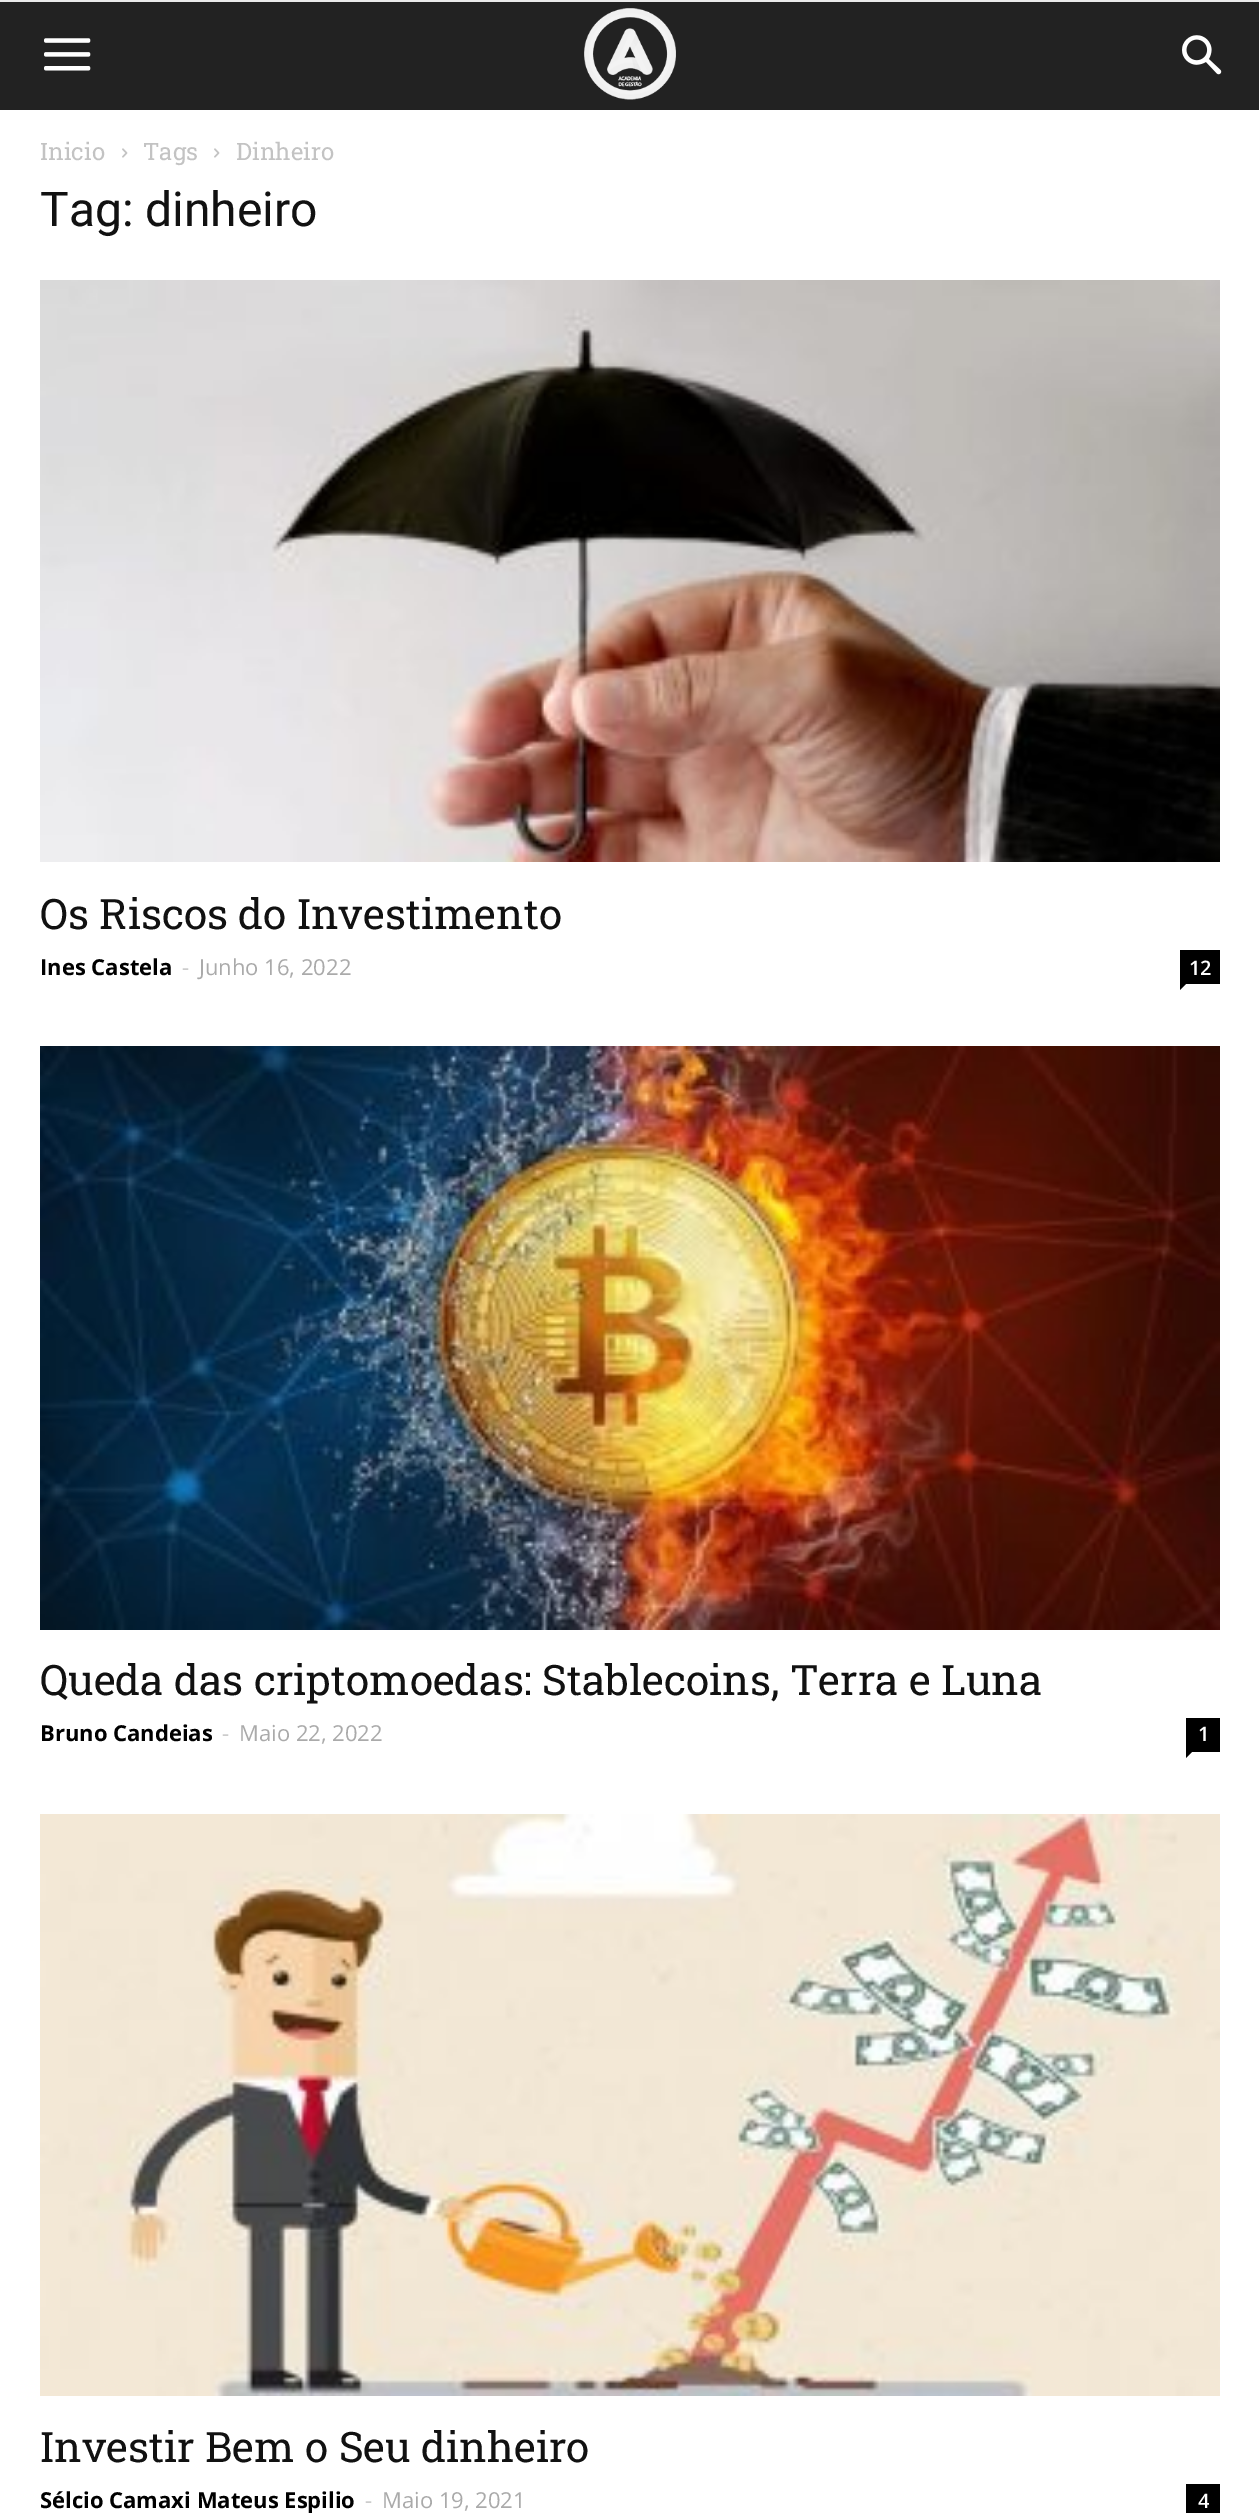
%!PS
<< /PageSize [1259 2513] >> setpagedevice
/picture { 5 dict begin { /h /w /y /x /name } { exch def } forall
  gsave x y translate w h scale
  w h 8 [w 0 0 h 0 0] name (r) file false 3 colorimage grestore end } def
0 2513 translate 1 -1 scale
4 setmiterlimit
1 setgray
0 0 1259 2513 rectfill
0.918 setgray
0 0 1259 2 rectfill
0.133 setgray
0 2 1259 108 rectfill
(img1.rgb) 44 38 47 33 picture
(img2.rgb) 584 8 92 92 picture
(img3.rgb) 1182 35 40 40 picture
/RobotoSlab-Regular [24 0 0 -24 0 0] selectfont
0.765 setgray
40 160 moveto (Inicio) show
(img4.rgb) 122 148 6 10 picture
143 160 moveto (Tags) show
(img4.rgb) 214 148 6 10 picture
236 160 moveto (Dinheiro) show
/Roboto-Regular [48 0 0 -48 0 0] selectfont
0.067 setgray
40 226 moveto (Tag: dinheiro) show
(img5.rgb) 40 280 1180 582 picture
/RobotoSlab-Regular [42 0 0 -42 0 0] selectfont
40 929 moveto (Os Riscos do Investimento) show
/OpenSans-Bold [22 0 0 -22 0 0] selectfont
0 setgray
40 975 moveto (Ines Castela) show
/OpenSans-Regular [22 0 0 -22 0 0] selectfont
0.8 setgray
182 975 moveto (-) show
0.667 setgray
199 975 moveto (Junho 16, 2022) show
0 setgray
1180 950 40 34 rectfill
/OpenSans-SemiBold [20 0 0 -20 0 0] selectfont
1 setgray
1189 975 moveto (12) show
0 setgray
newpath 1180 984 moveto 1186 984 lineto 1180 990 lineto closepath fill
(img6.rgb) 40 1046 1180 584 picture
/RobotoSlab-Regular [42 0 0 -42 0 0] selectfont
0.067 setgray
40 1695 moveto (Queda das criptomoedas: Stablecoins, Terra e Luna) show
/OpenSans-Bold [22 0 0 -22 0 0] selectfont
0 setgray
40 1741 moveto (Bruno Candeias) show
/OpenSans-Regular [22 0 0 -22 0 0] selectfont
0.8 setgray
222 1741 moveto (-) show
0.667 setgray
239 1741 moveto (Maio 22, 2022) show
0 setgray
1186 1718 34 34 rectfill
/OpenSans-SemiBold [20 0 0 -20 0 0] selectfont
1 setgray
1198 1741 moveto (1) show
0 setgray
newpath 1186 1752 moveto 1192 1752 lineto 1186 1758 lineto closepath fill
(img7.rgb) 40 1814 1180 582 picture
/RobotoSlab-Regular [42 0 0 -42 0 0] selectfont
0.067 setgray
40 2462 moveto (Investir Bem o Seu dinheiro) show
/OpenSans-Bold [22 0 0 -22 0 0] selectfont
0 setgray
40 2508 moveto (Sélcio Camaxi Mateus Espilio) show
/OpenSans-Regular [22 0 0 -22 0 0] selectfont
0.8 setgray
365 2508 moveto (-) show
0.667 setgray
382 2508 moveto (Maio 19, 2021) show
0 setgray
1186 2484 34 29 rectfill
/OpenSans-SemiBold [20 0 0 -20 0 0] selectfont
1 setgray
1198 2508 moveto (4) show
showpage
